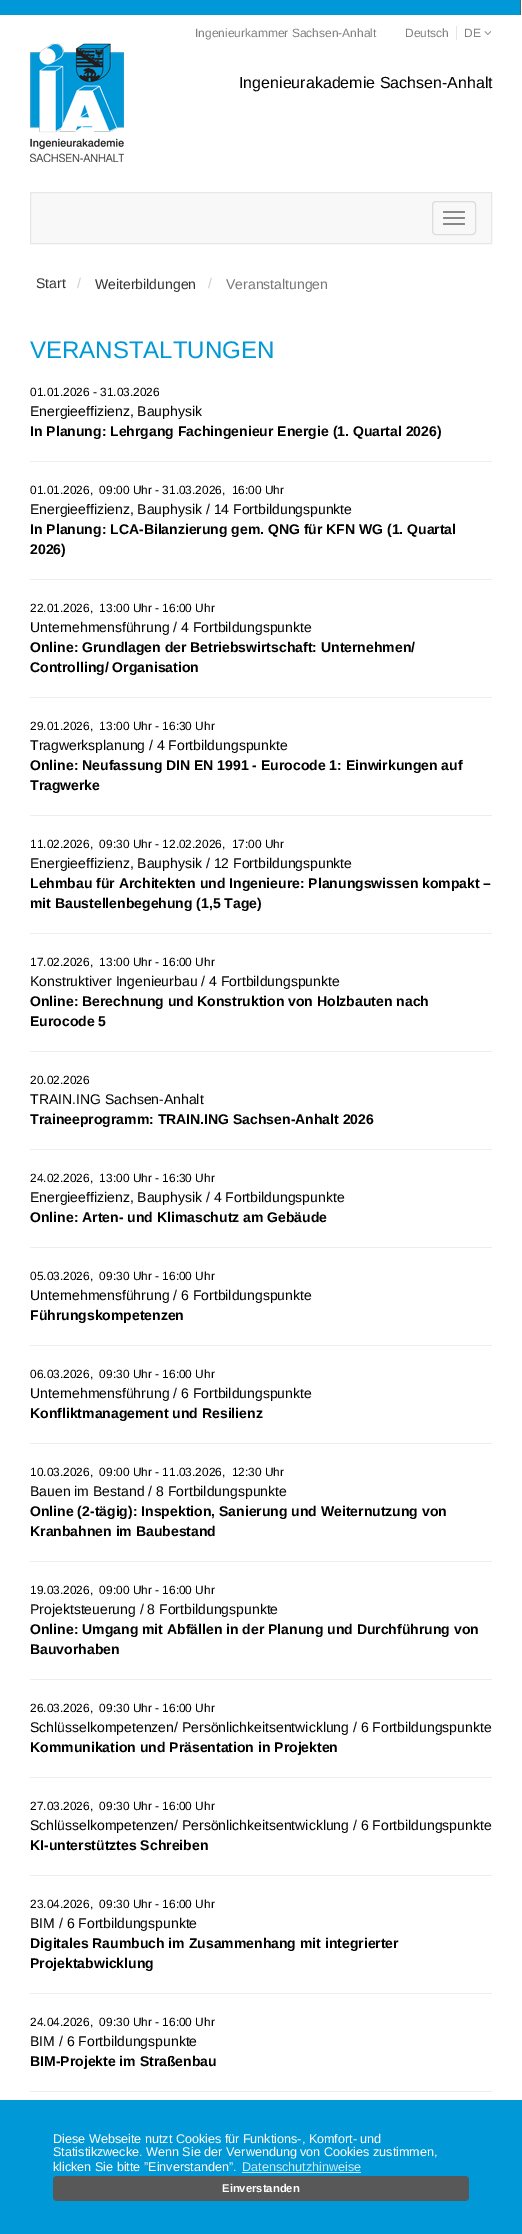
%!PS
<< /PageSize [522 2234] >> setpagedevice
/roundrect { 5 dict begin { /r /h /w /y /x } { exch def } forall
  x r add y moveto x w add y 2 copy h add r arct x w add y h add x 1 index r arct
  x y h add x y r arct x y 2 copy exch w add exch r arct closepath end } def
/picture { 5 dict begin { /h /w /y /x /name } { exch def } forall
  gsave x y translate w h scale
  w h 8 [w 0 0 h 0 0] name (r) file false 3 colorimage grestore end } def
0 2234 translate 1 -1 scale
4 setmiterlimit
1 setgray
0 0 522 2234 rectfill
0.004 0.596 0.843 setrgbcolor
0 0 521 15 rectfill
gsave
0 0 521 15 rectclip
0.345 setgray
0.4 setlinewidth
newpath -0.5 -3 moveto 520.5 -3 lineto 520.5 36 lineto -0.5 36 lineto closepath stroke
grestore
/LiberationSans-Regular [12 0 0 -12 0 0] selectfont
0.502 setgray
195 37 moveto (Ingenieurkammer Sachsen-Anhalt) show
405 37 moveto (Deutsch) show
464 37 moveto (DE) show
0.902 setgray
456 26 1 14 rectfill
(img1.rgb) 484 31 8 4 picture
(img2.rgb) 30 43 94 119 picture
/LiberationSans-Regular [16 0 0 -16 0 0] selectfont
0 setgray
239 88 moveto (Ingenieurakademie Sachsen-Anhalt) show
0.973 setgray
newpath 30.5 192.5 moveto 491.5 192.5 lineto 491.5 243.5 lineto 30.5 243.5 lineto closepath gsave fill grestore
0.906 setgray
stroke
0.867 setgray
432.5 201.5 43 33 3.5 roundrect stroke
0.533 setgray
443 211 22 2 1 roundrect fill
443 217 22 2 1 roundrect fill
443 223 22 2 1 roundrect fill
/LiberationSans-Regular [14 0 0 -14 0 0] selectfont
0.2 setgray
36 288 moveto (Start) show
0.8 setgray
77 288 moveto (/) show
0.2 setgray
95 289 moveto (Weiterbildungen) show
0.8 setgray
208 288 moveto (/) show
0.467 setgray
226 289 moveto (Veranstaltungen) show
/LiberationSans-Regular [24 0 0 -24 0 0] selectfont
0.004 0.596 0.843 setrgbcolor
30 358 moveto (VERANSTALTUNGEN) show
/LiberationSans-Regular [11.9 0 0 -11.9 0 0] selectfont
0 setgray
30 396 moveto (01.01.2026 - 31.03.2026) show
/LiberationSans-Regular [14 0 0 -14 0 0] selectfont
30 416 moveto (Energieeffizienz, Bauphysik) show
/LiberationSans-Bold [14 0 0 -14 0 0] selectfont
30 436 moveto (In Planung: Lehrgang Fachingenieur Energie \(1. Quartal 2026\)) show
0.933 setgray
30 461 462 1 rectfill
/LiberationSans-Regular [11.9 0 0 -11.9 0 0] selectfont
0 setgray
30 494 moveto (01.01.2026,  09:00 Uhr - 31.03.2026,  16:00 Uhr) show
/LiberationSans-Regular [14 0 0 -14 0 0] selectfont
30 514 moveto (Energieeffizienz, Bauphysik / 14 Fortbildungspunkte) show
/LiberationSans-Bold [14 0 0 -14 0 0] selectfont
30 534 moveto (In Planung: LCA-Bilanzierung gem. QNG für KFN WG \(1. Quartal) show
30 554 moveto (2026\)) show
0.933 setgray
30 579 462 1 rectfill
/LiberationSans-Regular [11.9 0 0 -11.9 0 0] selectfont
0 setgray
30 612 moveto (22.01.2026,  13:00 Uhr - 16:00 Uhr) show
/LiberationSans-Regular [14 0 0 -14 0 0] selectfont
30 632 moveto (Unternehmensführung / 4 Fortbildungspunkte) show
/LiberationSans-Bold [14 0 0 -14 0 0] selectfont
30 652 moveto (Online: Grundlagen der Betriebswirtschaft: Unternehmen/) show
30 672 moveto (Controlling/ Organisation) show
0.933 setgray
30 697 462 1 rectfill
/LiberationSans-Regular [11.9 0 0 -11.9 0 0] selectfont
0 setgray
30 730 moveto (29.01.2026,  13:00 Uhr - 16:30 Uhr) show
/LiberationSans-Regular [14 0 0 -14 0 0] selectfont
30 750 moveto (Tragwerksplanung / 4 Fortbildungspunkte) show
/LiberationSans-Bold [14 0 0 -14 0 0] selectfont
30 770 moveto (Online: Neufassung DIN EN 1991 - Eurocode 1: Einwirkungen auf) show
30 790 moveto (Tragwerke) show
0.933 setgray
30 815 462 1 rectfill
/LiberationSans-Regular [11.9 0 0 -11.9 0 0] selectfont
0 setgray
30 848 moveto (11.02.2026,  09:30 Uhr - 12.02.2026,  17:00 Uhr) show
/LiberationSans-Regular [14 0 0 -14 0 0] selectfont
30 868 moveto (Energieeffizienz, Bauphysik / 12 Fortbildungspunkte) show
/LiberationSans-Bold [14 0 0 -14 0 0] selectfont
30 888 moveto (Lehmbau für Architekten und Ingenieure: Planungswissen kompakt –) show
30 908 moveto (mit Baustellenbegehung \(1,5 Tage\)) show
0.933 setgray
30 933 462 1 rectfill
/LiberationSans-Regular [11.9 0 0 -11.9 0 0] selectfont
0 setgray
30 966 moveto (17.02.2026,  13:00 Uhr - 16:00 Uhr) show
/LiberationSans-Regular [14 0 0 -14 0 0] selectfont
30 986 moveto (Konstruktiver Ingenieurbau / 4 Fortbildungspunkte) show
/LiberationSans-Bold [14 0 0 -14 0 0] selectfont
30 1006 moveto (Online: Berechnung und Konstruktion von Holzbauten nach) show
30 1026 moveto (Eurocode 5) show
0.933 setgray
30 1051 462 1 rectfill
/LiberationSans-Regular [11.9 0 0 -11.9 0 0] selectfont
0 setgray
30 1084 moveto (20.02.2026) show
/LiberationSans-Regular [14 0 0 -14 0 0] selectfont
30 1104 moveto (TRAIN.ING Sachsen-Anhalt) show
/LiberationSans-Bold [14 0 0 -14 0 0] selectfont
30 1124 moveto (Traineeprogramm: TRAIN.ING Sachsen-Anhalt 2026) show
0.933 setgray
30 1149 462 1 rectfill
/LiberationSans-Regular [11.9 0 0 -11.9 0 0] selectfont
0 setgray
30 1182 moveto (24.02.2026,  13:00 Uhr - 16:30 Uhr) show
/LiberationSans-Regular [14 0 0 -14 0 0] selectfont
30 1202 moveto (Energieeffizienz, Bauphysik / 4 Fortbildungspunkte) show
/LiberationSans-Bold [14 0 0 -14 0 0] selectfont
30 1222 moveto (Online: Arten- und Klimaschutz am Gebäude) show
0.933 setgray
30 1247 462 1 rectfill
/LiberationSans-Regular [11.9 0 0 -11.9 0 0] selectfont
0 setgray
30 1280 moveto (05.03.2026,  09:30 Uhr - 16:00 Uhr) show
/LiberationSans-Regular [14 0 0 -14 0 0] selectfont
30 1300 moveto (Unternehmensführung / 6 Fortbildungspunkte) show
/LiberationSans-Bold [14 0 0 -14 0 0] selectfont
30 1320 moveto (Führungskompetenzen) show
0.933 setgray
30 1345 462 1 rectfill
/LiberationSans-Regular [11.9 0 0 -11.9 0 0] selectfont
0 setgray
30 1378 moveto (06.03.2026,  09:30 Uhr - 16:00 Uhr) show
/LiberationSans-Regular [14 0 0 -14 0 0] selectfont
30 1398 moveto (Unternehmensführung / 6 Fortbildungspunkte) show
/LiberationSans-Bold [14 0 0 -14 0 0] selectfont
30 1418 moveto (Konfliktmanagement und Resilienz) show
0.933 setgray
30 1443 462 1 rectfill
/LiberationSans-Regular [11.9 0 0 -11.9 0 0] selectfont
0 setgray
30 1476 moveto (10.03.2026,  09:00 Uhr - 11.03.2026,  12:30 Uhr) show
/LiberationSans-Regular [14 0 0 -14 0 0] selectfont
30 1496 moveto (Bauen im Bestand / 8 Fortbildungspunkte) show
/LiberationSans-Bold [14 0 0 -14 0 0] selectfont
30 1516 moveto (Online \(2-tägig\): Inspektion, Sanierung und Weiternutzung von) show
30 1536 moveto (Kranbahnen im Baubestand) show
0.933 setgray
30 1561 462 1 rectfill
/LiberationSans-Regular [11.9 0 0 -11.9 0 0] selectfont
0 setgray
30 1594 moveto (19.03.2026,  09:00 Uhr - 16:00 Uhr) show
/LiberationSans-Regular [14 0 0 -14 0 0] selectfont
30 1614 moveto (Projektsteuerung / 8 Fortbildungspunkte) show
/LiberationSans-Bold [14 0 0 -14 0 0] selectfont
30 1634 moveto (Online: Umgang mit Abfällen in der Planung und Durchführung von) show
30 1654 moveto (Bauvorhaben) show
0.933 setgray
30 1679 462 1 rectfill
/LiberationSans-Regular [11.9 0 0 -11.9 0 0] selectfont
0 setgray
30 1712 moveto (26.03.2026,  09:30 Uhr - 16:00 Uhr) show
/LiberationSans-Regular [14 0 0 -14 0 0] selectfont
30 1732 moveto (Schlüsselkompetenzen/ Persönlichkeitsentwicklung / 6 Fortbildungspunkte) show
/LiberationSans-Bold [14 0 0 -14 0 0] selectfont
30 1752 moveto (Kommunikation und Präsentation in Projekten) show
0.933 setgray
30 1777 462 1 rectfill
/LiberationSans-Regular [11.9 0 0 -11.9 0 0] selectfont
0 setgray
30 1810 moveto (27.03.2026,  09:30 Uhr - 16:00 Uhr) show
/LiberationSans-Regular [14 0 0 -14 0 0] selectfont
30 1830 moveto (Schlüsselkompetenzen/ Persönlichkeitsentwicklung / 6 Fortbildungspunkte) show
/LiberationSans-Bold [14 0 0 -14 0 0] selectfont
30 1850 moveto (KI-unterstütztes Schreiben) show
0.933 setgray
30 1875 462 1 rectfill
/LiberationSans-Regular [11.9 0 0 -11.9 0 0] selectfont
0 setgray
30 1908 moveto (23.04.2026,  09:30 Uhr - 16:00 Uhr) show
/LiberationSans-Regular [14 0 0 -14 0 0] selectfont
30 1928 moveto (BIM / 6 Fortbildungspunkte) show
/LiberationSans-Bold [14 0 0 -14 0 0] selectfont
30 1948 moveto (Digitales Raumbuch im Zusammenhang mit integrierter) show
30 1968 moveto (Projektabwicklung) show
0.933 setgray
30 1993 462 1 rectfill
/LiberationSans-Regular [11.9 0 0 -11.9 0 0] selectfont
0 setgray
30 2026 moveto (24.04.2026,  09:30 Uhr - 16:00 Uhr) show
/LiberationSans-Regular [14 0 0 -14 0 0] selectfont
30 2046 moveto (BIM / 6 Fortbildungspunkte) show
/LiberationSans-Bold [14 0 0 -14 0 0] selectfont
30 2066 moveto (BIM-Projekte im Straßenbau) show
0.933 setgray
30 2091 462 1 rectfill
0.004 0.596 0.843 setrgbcolor
0 2100 522 134 rectfill
/LiberationSans-Regular [12.6 0 0 -12.6 0 0] selectfont
1 setgray
53 2143 moveto (Diese Webseite nutzt Cookies für Funktions-, Komfort- und) show
53 2156 moveto (Statistikzwecke. Wenn Sie der Verwendung von Cookies zustimmen,) show
53 2171 moveto (klicken Sie bitte ”Einverstanden”.) show
0.8 0.918 0.969 setrgbcolor
242 2171 moveto (Datenschutzhinweise) show
242 2172 119 1 rectfill
0.345 setgray
53 2176 416 25 4 roundrect fill
/LiberationSans-Bold [11.25 0 0 -11.25 0 0] selectfont
1 setgray
222 2192 moveto (Einverstanden) show
showpage
